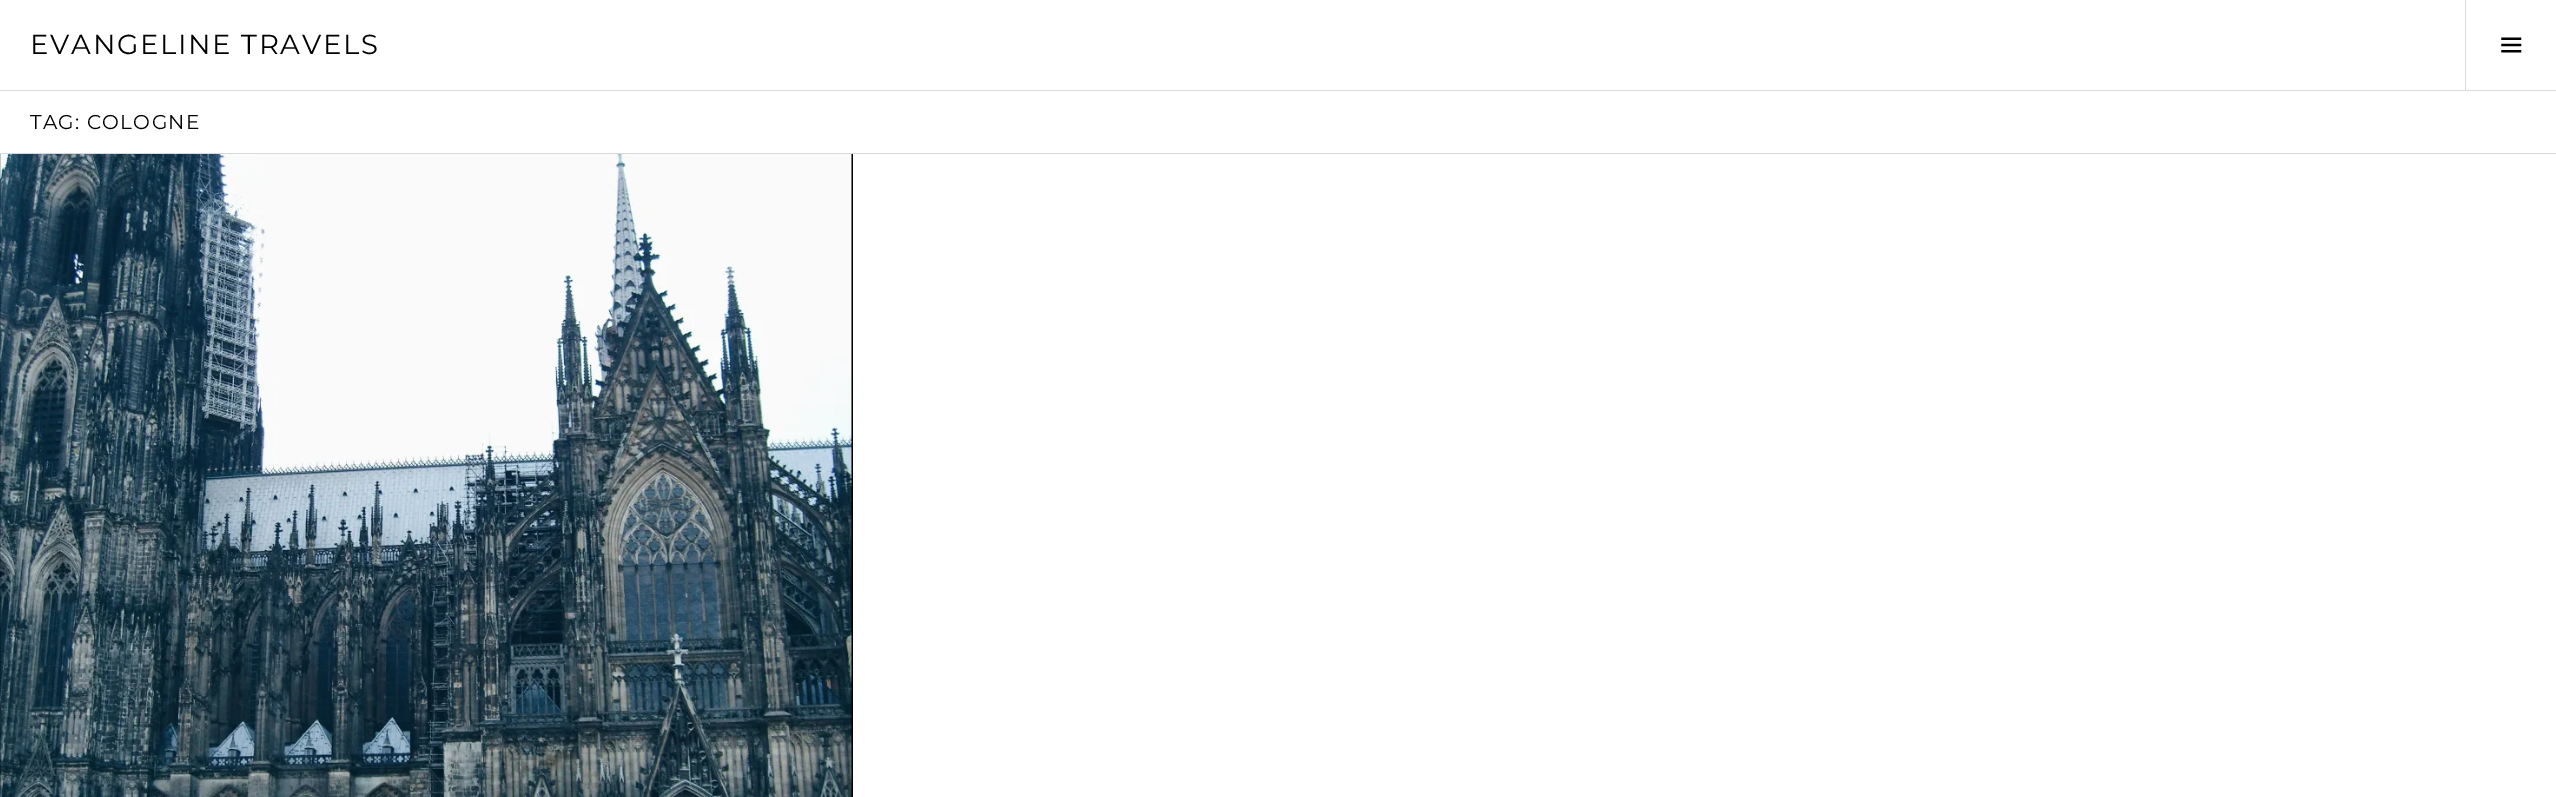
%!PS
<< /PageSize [2556 797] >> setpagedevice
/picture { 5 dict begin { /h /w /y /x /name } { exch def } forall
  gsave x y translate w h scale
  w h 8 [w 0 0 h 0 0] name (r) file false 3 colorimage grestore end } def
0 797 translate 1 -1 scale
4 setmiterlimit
1 setgray
0 0 2556 797 rectfill
0.851 setgray
0 90 2556 1 rectfill
/Montserrat-Regular [27.5 0 0 -27.5 0 0] selectfont
0 setgray
30 54 moveto 1.75 0 (EVANGELINE TRAVELS) ashow
0.851 setgray
2465 0 1 90 rectfill
(img1.rgb) 2501 37 21 16 picture
0 153 2556 1 rectfill
/Montserrat-Regular [20 0 0 -20 0 0] selectfont
0 setgray
30 129 moveto 1.25 0 (TAG: COLOGNE) ashow
0 154 853 643 rectfill
(img2.rgb) 0 154 852 643 picture
showpage
